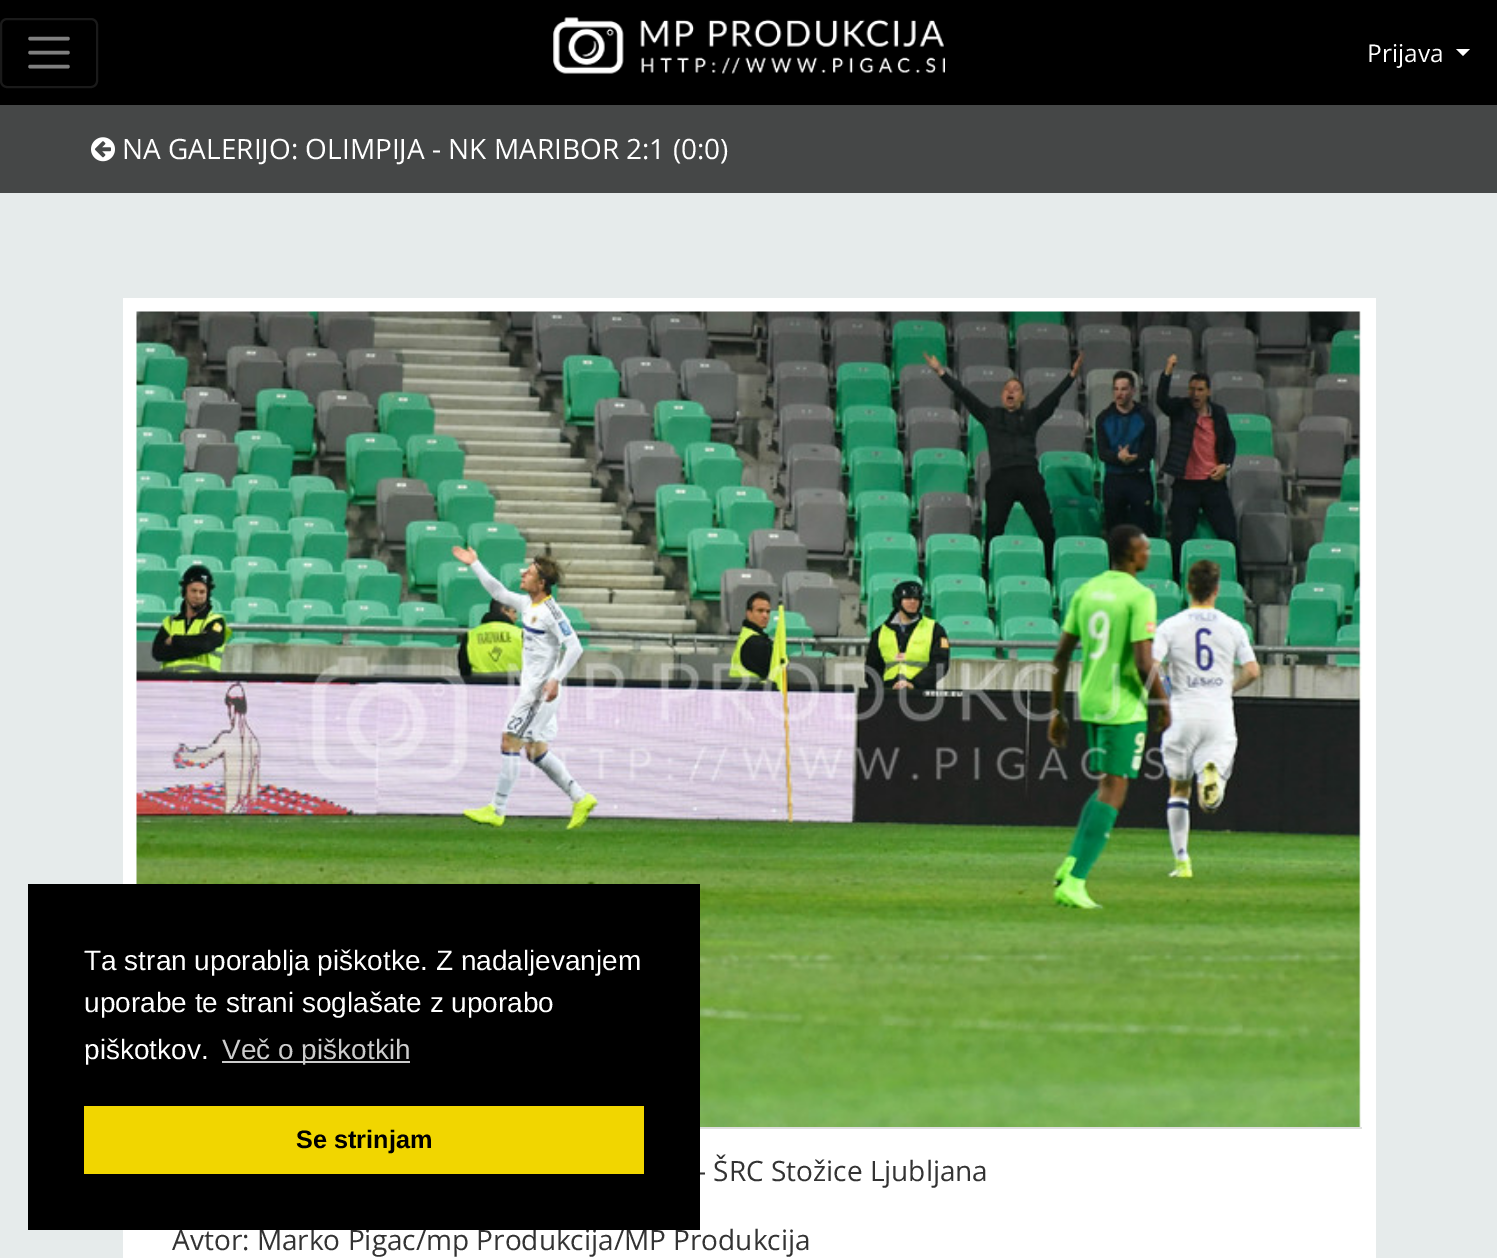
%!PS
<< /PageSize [1497 1258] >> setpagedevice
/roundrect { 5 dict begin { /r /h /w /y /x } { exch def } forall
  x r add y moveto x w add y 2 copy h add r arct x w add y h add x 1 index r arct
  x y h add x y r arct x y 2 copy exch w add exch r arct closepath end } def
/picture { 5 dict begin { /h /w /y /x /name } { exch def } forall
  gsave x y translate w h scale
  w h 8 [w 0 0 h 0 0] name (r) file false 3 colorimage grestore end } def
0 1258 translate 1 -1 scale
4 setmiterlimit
0.902 0.922 0.922 setrgbcolor
0 0 1497 1258 rectfill
0 setgray
0 0 1497 105 rectfill
0.102 setgray
2 setlinewidth
1 19 96 68 6 roundrect stroke
0.502 setgray
3.5 setlinewidth
1 setlinecap
newpath 30 38.5 moveto 68 38.5 lineto 30 52.5 moveto 68 52.5 lineto 30 66.5 moveto 68 66.5 lineto stroke
(img1.rgb) 553 17 392 57 picture
/OpenSans-Regular [24.5 0 0 -24.5 0 0] selectfont
1 setgray
1367 62 moveto (Prijava) show
newpath 1456 49 moveto 1470 49 lineto 1463 56 lineto closepath fill
0.271 0.278 0.278 setrgbcolor
0 105 1497 88 rectfill
(img2.rgb) 91 137 24 25 picture
/OpenSans-Regular [28 0 0 -28 0 0] selectfont
1 setgray
122 159 moveto (NA GALERIJO: OLIMPIJA - NK MARIBOR 2:1 \(0:0\)) show
123 298 1253 960 rectfill
(img3.rgb) 136 311 1226 816 picture
0.2 setgray
697 1181 moveto (- ŠRC Stožice Ljubljana) show
172 1250 moveto (Avtor: Marko Pigac/mp Produkcija/MP Produkcija) show
0 setgray
28 884 672 346 rectfill
/LiberationSans-Regular [28 0 0 -28 0 0] selectfont
1 setgray
84 970 moveto (Ta stran uporablja piškotke. Z nadaljevanjem) show
84 1012 moveto (uporabe te strani soglašate z uporabo) show
84 1059 moveto (piškotkov.) show
0.8 setgray
222 1061 188 2 rectfill
222 1059 moveto (Več o piškotkih) show
0.945 0.839 0 setrgbcolor
84 1106 560 68 rectfill
/LiberationSans-Bold [25.25 0 0 -25.25 0 0] selectfont
0 setgray
296 1148 moveto (Se strinjam) show
0.875 setgray
700 1127 662 2 rectfill
showpage
